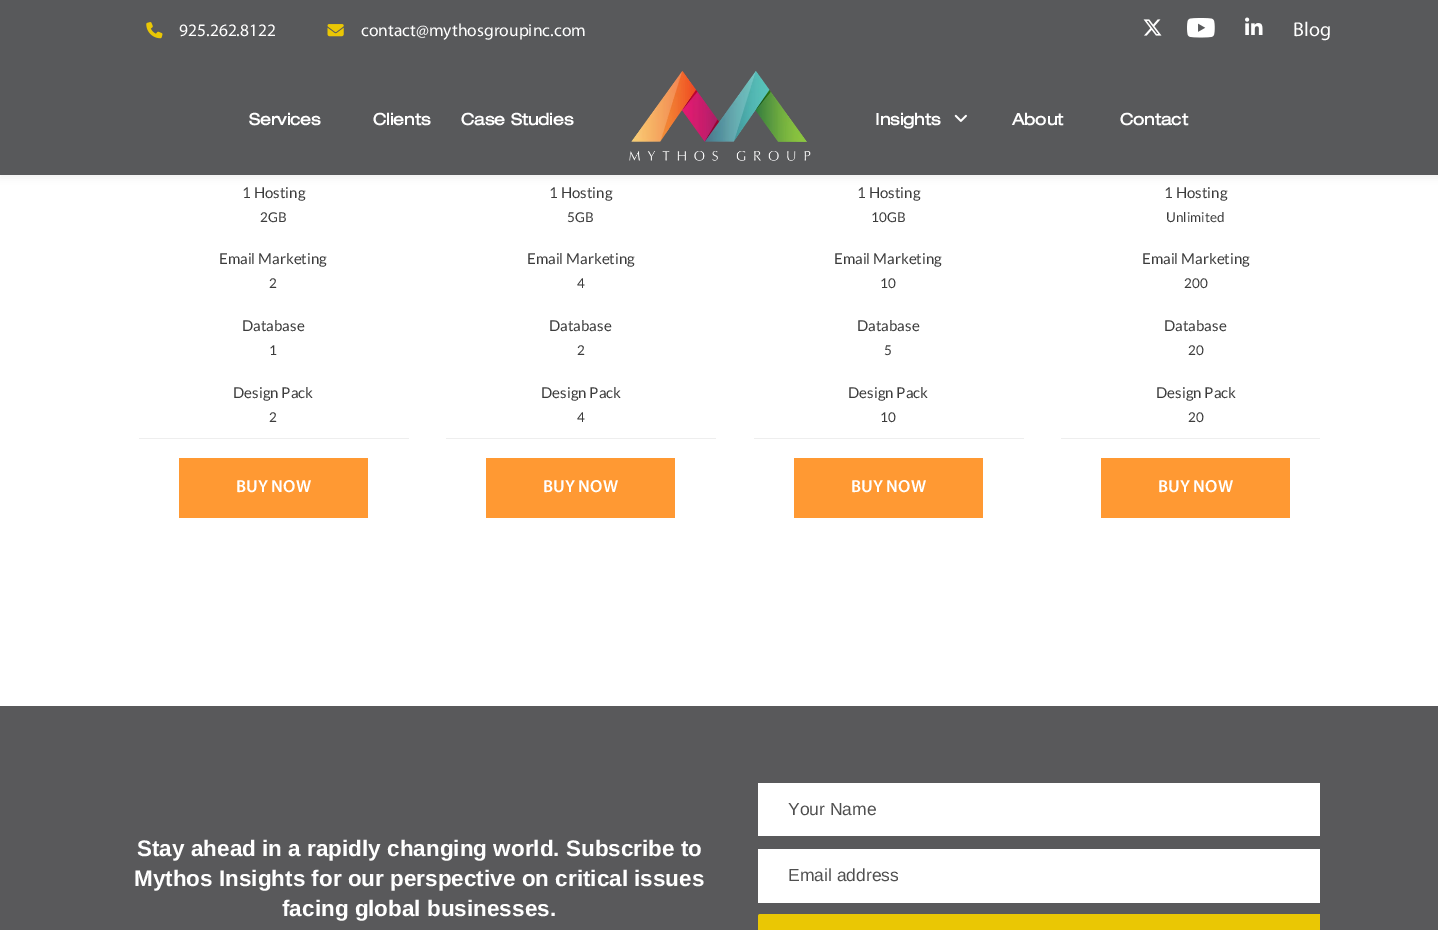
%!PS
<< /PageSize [1438 930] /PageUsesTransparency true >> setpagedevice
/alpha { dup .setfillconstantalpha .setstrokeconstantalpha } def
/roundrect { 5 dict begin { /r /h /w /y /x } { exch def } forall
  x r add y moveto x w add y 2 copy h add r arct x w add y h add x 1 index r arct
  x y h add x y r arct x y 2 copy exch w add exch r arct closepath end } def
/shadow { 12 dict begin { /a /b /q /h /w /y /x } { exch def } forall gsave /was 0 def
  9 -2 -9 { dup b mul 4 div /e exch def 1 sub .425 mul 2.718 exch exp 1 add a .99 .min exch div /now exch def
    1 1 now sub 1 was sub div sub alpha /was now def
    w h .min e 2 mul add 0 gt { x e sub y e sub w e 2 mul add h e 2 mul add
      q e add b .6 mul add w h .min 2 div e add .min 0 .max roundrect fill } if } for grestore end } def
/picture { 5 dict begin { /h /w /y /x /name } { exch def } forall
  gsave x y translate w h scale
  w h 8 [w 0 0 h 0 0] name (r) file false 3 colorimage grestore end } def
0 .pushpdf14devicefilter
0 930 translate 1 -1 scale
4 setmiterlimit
1 setgray
0 0 1438 930 rectfill
0 setgray
0 3 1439 175 0 4 0.05 shadow
0.345 0.349 0.357 setrgbcolor
0 0 1438 175 rectfill
(img1.rgb) 146 22 17 17 picture
/Myriad-Regular [17.5 0 0 -17.5 0 0] selectfont
1 setgray
179 36 moveto (925.262.8122) show
(img2.rgb) 327 24 17 13 picture
361 36 moveto (contact@mythosgroupinc.com) show
(img3.rgb) 1143 19 19 17 picture
(img4.rgb) 1187 18 28 20 picture
(img5.rgb) 1245 17 18 18 picture
/Myriad-Regular [20 0 0 -20 0 0] selectfont
1293 36 moveto (Blog) show
(img6.rgb) 629 71 182 90 picture
/HelveticaNeue-Bold [16.25 0 0 -16.25 0 0] selectfont
249 125 moveto (Services) show
373 125 moveto (Clients) show
461 125 moveto (Case Studies) show
875 125 moveto (Insights) show
(img7.rgb) 954 114 13 8 picture
1012 125 moveto (About) show
1120 125 moveto (Contact) show
/Lato-Regular [15 0 0 -15 0 0] selectfont
0.235 setgray
242 198 moveto (1 Hosting) show
/Lato-Regular [13.5 0 0 -13.5 0 0] selectfont
260 222 moveto (2GB) show
/Lato-Regular [15 0 0 -15 0 0] selectfont
219 264 moveto (Email Marketing) show
/Lato-Regular [13.5 0 0 -13.5 0 0] selectfont
269 288 moveto (2) show
/Lato-Regular [15 0 0 -15 0 0] selectfont
242 331 moveto (Database) show
/Lato-Regular [13.5 0 0 -13.5 0 0] selectfont
269 355 moveto (1) show
0.933 setgray
139 438 270 1 rectfill
/Lato-Regular [15 0 0 -15 0 0] selectfont
0.235 setgray
233 398 moveto (Design Pack) show
/Lato-Regular [13.5 0 0 -13.5 0 0] selectfont
269 422 moveto (2) show
1 0.6 0.2 setrgbcolor
179 458 189 60 rectfill
/Myriad-SemiBold [17.5 0 0 -17.5 0 0] selectfont
1 setgray
236 492 moveto (BUY NOW) show
/Lato-Regular [15 0 0 -15 0 0] selectfont
0.235 setgray
549 198 moveto (1 Hosting) show
/Lato-Regular [13.5 0 0 -13.5 0 0] selectfont
567 222 moveto (5GB) show
/Lato-Regular [15 0 0 -15 0 0] selectfont
527 264 moveto (Email Marketing) show
/Lato-Regular [13.5 0 0 -13.5 0 0] selectfont
577 288 moveto (4) show
/Lato-Regular [15 0 0 -15 0 0] selectfont
549 331 moveto (Database) show
/Lato-Regular [13.5 0 0 -13.5 0 0] selectfont
577 355 moveto (2) show
0.933 setgray
446 438 270 1 rectfill
/Lato-Regular [15 0 0 -15 0 0] selectfont
0.235 setgray
541 398 moveto (Design Pack) show
/Lato-Regular [13.5 0 0 -13.5 0 0] selectfont
577 422 moveto (4) show
1 0.6 0.2 setrgbcolor
486 458 189 60 rectfill
/Myriad-SemiBold [17.5 0 0 -17.5 0 0] selectfont
1 setgray
543 492 moveto (BUY NOW) show
/Lato-Regular [15 0 0 -15 0 0] selectfont
0.235 setgray
857 198 moveto (1 Hosting) show
/Lato-Regular [13.5 0 0 -13.5 0 0] selectfont
871 222 moveto (10GB) show
/Lato-Regular [15 0 0 -15 0 0] selectfont
834 264 moveto (Email Marketing) show
/Lato-Regular [13.5 0 0 -13.5 0 0] selectfont
880 288 moveto (10) show
/Lato-Regular [15 0 0 -15 0 0] selectfont
857 331 moveto (Database) show
/Lato-Regular [13.5 0 0 -13.5 0 0] selectfont
884 355 moveto (5) show
0.933 setgray
754 438 270 1 rectfill
/Lato-Regular [15 0 0 -15 0 0] selectfont
0.235 setgray
848 398 moveto (Design Pack) show
/Lato-Regular [13.5 0 0 -13.5 0 0] selectfont
880 422 moveto (10) show
1 0.6 0.2 setrgbcolor
794 458 189 60 rectfill
/Myriad-SemiBold [17.5 0 0 -17.5 0 0] selectfont
1 setgray
851 492 moveto (BUY NOW) show
/Lato-Regular [15 0 0 -15 0 0] selectfont
0.235 setgray
1164 198 moveto (1 Hosting) show
/Lato-Regular [13.5 0 0 -13.5 0 0] selectfont
1166 222 moveto (Unlimited) show
/Lato-Regular [15 0 0 -15 0 0] selectfont
1142 264 moveto (Email Marketing) show
/Lato-Regular [13.5 0 0 -13.5 0 0] selectfont
1184 288 moveto (200) show
/Lato-Regular [15 0 0 -15 0 0] selectfont
1164 331 moveto (Database) show
/Lato-Regular [13.5 0 0 -13.5 0 0] selectfont
1188 355 moveto (20) show
0.933 setgray
1061 438 259 1 rectfill
/Lato-Regular [15 0 0 -15 0 0] selectfont
0.235 setgray
1156 398 moveto (Design Pack) show
/Lato-Regular [13.5 0 0 -13.5 0 0] selectfont
1188 422 moveto (20) show
1 0.6 0.2 setrgbcolor
1101 458 189 60 rectfill
/Myriad-SemiBold [17.5 0 0 -17.5 0 0] selectfont
1 setgray
1158 492 moveto (BUY NOW) show
0.349 0.349 0.357 setrgbcolor
0 706 1438 224 rectfill
/LiberationSans-Bold [22.5 0 0 -22.5 0 0] selectfont
1 setgray
137 856 moveto (Stay ahead in a rapidly changing world. Subscribe to) show
134 886 moveto (Mythos Insights for our perspective on critical issues) show
282 916 moveto (facing global businesses.) show
758 783 562 53 rectfill
/LiberationSans-Regular [17.5 0 0 -17.5 0 0] selectfont
0.31 setgray
788 815 moveto (Your Name) show
1 setgray
758 849 562 54 rectfill
0.31 setgray
788 881 moveto (Email address) show
0.918 0.78 0.016 setrgbcolor
newpath 760.5 914 moveto 1320 914 lineto 1320 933 lineto 760.5 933 lineto 759 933 758 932 758 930.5 curveto 758 916.5 lineto 758 915 759 914 760.5 914 curveto closepath fill
.poppdf14devicefilter showpage
